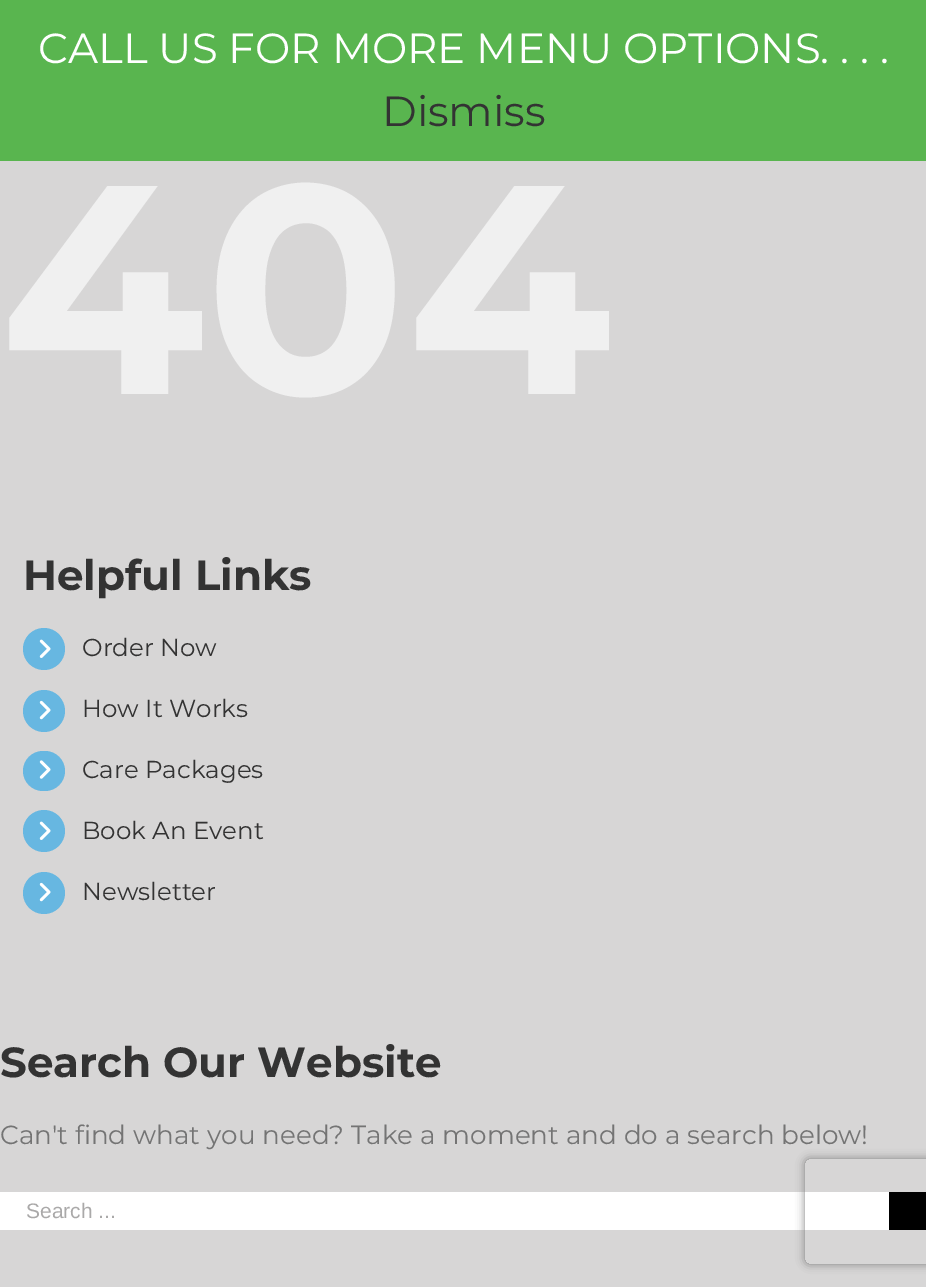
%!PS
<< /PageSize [926 1287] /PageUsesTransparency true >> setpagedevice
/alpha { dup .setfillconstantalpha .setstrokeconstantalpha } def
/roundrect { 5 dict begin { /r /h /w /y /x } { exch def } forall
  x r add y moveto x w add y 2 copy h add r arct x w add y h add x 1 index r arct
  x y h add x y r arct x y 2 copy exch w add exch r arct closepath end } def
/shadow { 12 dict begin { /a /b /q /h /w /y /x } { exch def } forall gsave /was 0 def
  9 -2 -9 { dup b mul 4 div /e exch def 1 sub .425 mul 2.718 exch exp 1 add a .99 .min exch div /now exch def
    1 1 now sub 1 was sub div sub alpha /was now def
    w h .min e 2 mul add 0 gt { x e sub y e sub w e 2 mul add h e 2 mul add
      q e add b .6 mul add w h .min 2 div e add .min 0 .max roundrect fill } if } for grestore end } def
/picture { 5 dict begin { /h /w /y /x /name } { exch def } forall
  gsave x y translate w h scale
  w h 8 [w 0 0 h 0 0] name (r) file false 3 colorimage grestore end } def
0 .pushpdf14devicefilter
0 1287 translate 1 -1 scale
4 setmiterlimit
0.843 0.839 0.839 setrgbcolor
0 0 926 1287 rectfill
0.349 0.71 0.31 setrgbcolor
0 0 926 161 rectfill
/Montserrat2-Thin [42 0 0 -42 0 0] selectfont
1 setgray
38 63 moveto (CALL US FOR MORE MENU OPTIONS. . . .) show
0.2 setgray
382 126 moveto (Dismiss) show
/Montserrat-Thin [297.5 0 0 -297.5 0 0] selectfont
0.941 setgray
0 394 moveto (404) show
/Montserrat-Thin [42 0 0 -42 0 0] selectfont
0.2 setgray
23 590 moveto (Helpful Links) show
0.404 0.718 0.882 setrgbcolor
newpath 44 649 21 0 360 arc closepath fill
(img1.rgb) 39 639 12 19 picture
/Montserrat2-Thin [24.5 0 0 -24.5 0 0] selectfont
0.2 setgray
82 656 moveto (Order Now) show
0.404 0.718 0.882 setrgbcolor
newpath 44 711 21 0 360 arc closepath fill
(img2.rgb) 39 700 12 20 picture
0.2 setgray
82 717 moveto (How It Works) show
0.404 0.718 0.882 setrgbcolor
23 751 42 40 20 roundrect fill
(img3.rgb) 39 760 12 19 picture
0.2 setgray
82 778 moveto (Care Packages) show
0.404 0.718 0.882 setrgbcolor
newpath 44 831 21 0 360 arc closepath fill
(img1.rgb) 39 821 12 19 picture
0.2 setgray
82 839 moveto (Book An Event) show
0.404 0.718 0.882 setrgbcolor
newpath 44 893 21 0 360 arc closepath fill
(img2.rgb) 39 882 12 20 picture
0.2 setgray
82 900 moveto (Newsletter) show
/Montserrat-Thin [42 0 0 -42 0 0] selectfont
0 1077 moveto (Search Our Website) show
/Montserrat2-Thin [26.25 0 0 -26.25 0 0] selectfont
0.455 setgray
0 1144 moveto (Can't find what you need? Take a moment and do a search below!) show
1 setgray
0 1192 889 38 rectfill
/LiberationSans-Regular [21 0 0 -21 0 0] selectfont
0.667 0.663 0.663 setrgbcolor
26 1218 moveto (Search ...) show
0 setgray
889 1192 37 38 rectfill
gsave
newpath 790 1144 moveto 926 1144 lineto 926 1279 lineto 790 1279 lineto closepath 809 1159 moveto 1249 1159 lineto 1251 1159 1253 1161 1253 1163 curveto 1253 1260 lineto 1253 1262 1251 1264 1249 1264 curveto 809 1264 lineto 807 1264 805 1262 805 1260 curveto 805 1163 lineto 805 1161 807 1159 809 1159 curveto closepath eoclip newpath
0.502 setgray
805 1159 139 105 4 4.5 1 shadow
grestore
.poppdf14devicefilter showpage
